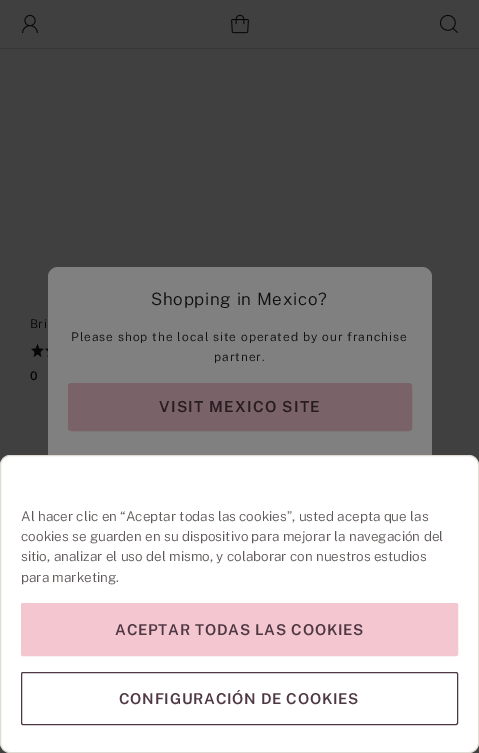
%!PS
<< /PageSize [479 753] >> setpagedevice
/roundrect { 5 dict begin { /r /h /w /y /x } { exch def } forall
  x r add y moveto x w add y 2 copy h add r arct x w add y h add x 1 index r arct
  x y h add x y r arct x y 2 copy exch w add exch r arct closepath end } def
/picture { 5 dict begin { /h /w /y /x /name } { exch def } forall
  gsave x y translate w h scale
  w h 8 [w 0 0 h 0 0] name (r) file false 3 colorimage grestore end } def
0 753 translate 1 -1 scale
4 setmiterlimit
0.251 setgray
0 0 479 753 rectfill
0.22 0.216 0.212 setrgbcolor
0 48 479 1 rectfill
(img1.rgb) 22 14 16 20 picture
(img2.rgb) 231 14 18 20 picture
(img3.rgb) 439 14 19 19 picture
/PublicSans-Light [12 0 0 -12 0 0] selectfont
0.035 0.031 0.031 setrgbcolor
30 328 moveto 0.5 0 (Bri) ashow
(img4.rgb) 31 344 13 13 picture
(img5.rgb) 45 348 3 9 picture
(img6.rgb) 31 344 13 13 picture
(img7.rgb) 45 348 3 9 picture
/PublicSans-SemiBold [12 0 0 -12 0 0] selectfont
30 380 moveto 0.95 0 (0) ashow
0.502 setgray
48 267 384 220 10 roundrect fill
/PublicSans-Light [17 0 0 -17 0 0] selectfont
0.067 0.059 0.059 setrgbcolor
151 305 moveto 0.7 0 (Shopping in Mexico?) ashow
/PublicSans-Light [12 0 0 -12 0 0] selectfont
71 341 moveto 0.95 0 (Please shop the local site operated by our franchise) ashow
214 361 moveto 0.95 0 (partner.) ashow
0.478 0.388 0.408 setrgbcolor
68.5 383.5 343 47 2.5 roundrect gsave fill grestore
stroke
/PublicSans-SemiBold [15.25 0 0 -15.25 0 0] selectfont
0.153 0.11 0.133 setrgbcolor
159 412 moveto 1.25 0 (VISIT MEXICO SITE) ashow
1 setgray
0.5 455.5 478 297 9.5 roundrect gsave fill grestore
0.878 0.855 0.835 setrgbcolor
stroke
/PublicSans-Light [13.5 0 0 -13.5 0 0] selectfont
0.376 0.345 0.345 setrgbcolor
21 521 moveto (Al hacer clic en “Aceptar todas las cookies”, usted acepta que las) show
21 541 moveto (cookies se guarden en su dispositivo para mejorar la navegación del) show
21 561 moveto (sitio, analizar el uso del mismo, y colaborar con nuestros estudios) show
21 582 moveto (para marketing.) show
0.957 0.776 0.812 setrgbcolor
21.5 603.5 436 52 1.5 roundrect gsave fill grestore
stroke
/PublicSans-SemiBold [15 0 0 -15 0 0] selectfont
0.306 0.22 0.267 setrgbcolor
115 635 moveto 0.75 0 (ACEPTAR TODAS LAS COOKIES) ashow
21.5 672.5 436 52 1.5 roundrect stroke
119 704 moveto 0.75 0 (CONFIGURACIÓN DE COOKIES) ashow
showpage
